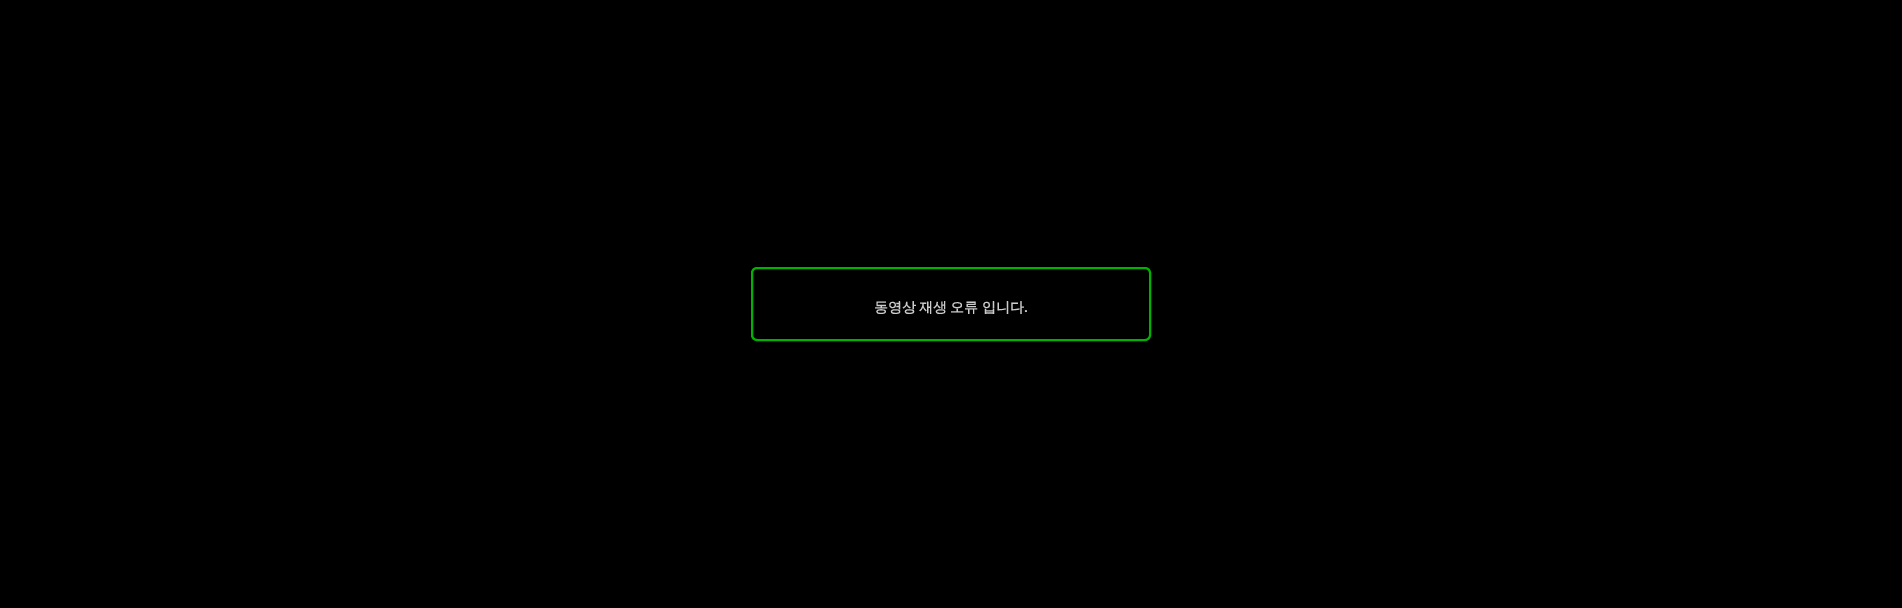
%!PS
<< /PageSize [1902 608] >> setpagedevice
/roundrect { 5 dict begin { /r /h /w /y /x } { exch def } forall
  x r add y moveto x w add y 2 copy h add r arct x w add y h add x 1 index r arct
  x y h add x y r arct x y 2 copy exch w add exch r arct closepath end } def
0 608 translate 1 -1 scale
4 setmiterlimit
0 setgray
0 0 1902 608 rectfill
0 0.694 0 setrgbcolor
2 setlinewidth
752 268 398 72 5 roundrect stroke
/WenQuanYiZenHei-Bold [14 0 0 -14 0 0] selectfont
0.8 setgray
874 312 moveto -1 0 32 (동영상 재생 오류 입니다) widthshow
/Roboto-Bold [14 0 0 -14 0 0] selectfont
1024 312 moveto (.) show
showpage
